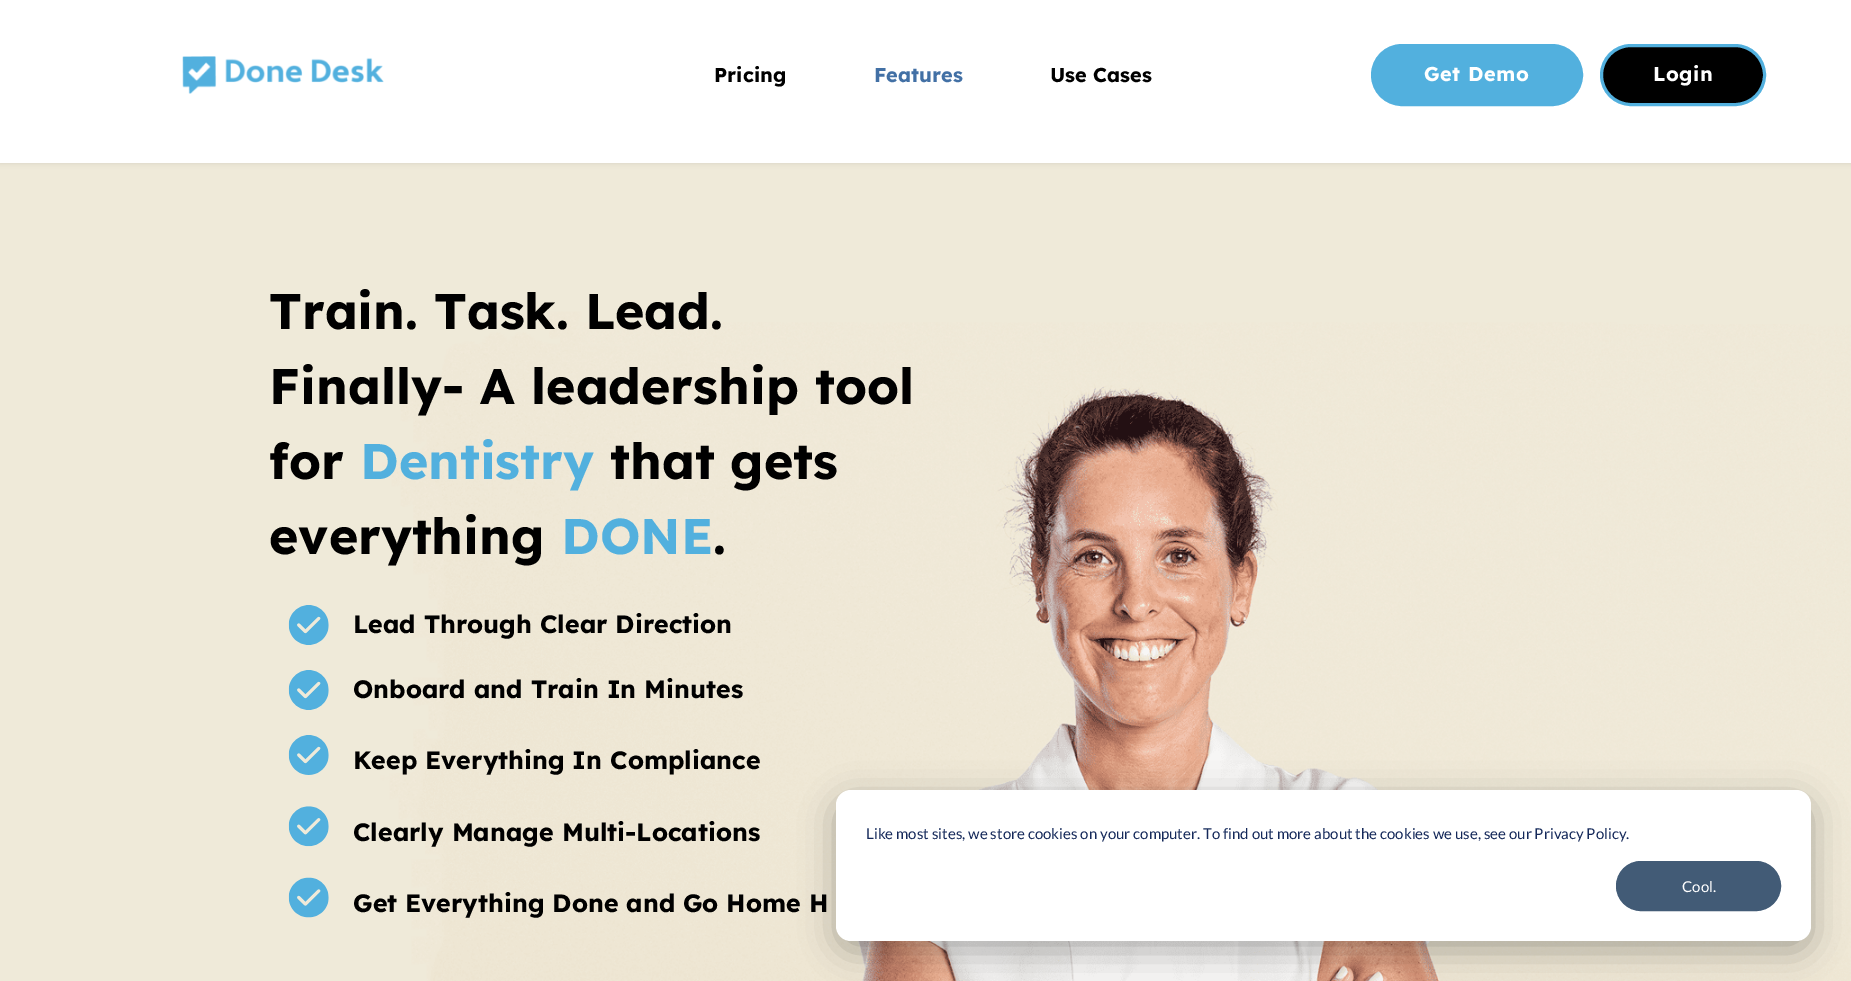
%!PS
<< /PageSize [1851 981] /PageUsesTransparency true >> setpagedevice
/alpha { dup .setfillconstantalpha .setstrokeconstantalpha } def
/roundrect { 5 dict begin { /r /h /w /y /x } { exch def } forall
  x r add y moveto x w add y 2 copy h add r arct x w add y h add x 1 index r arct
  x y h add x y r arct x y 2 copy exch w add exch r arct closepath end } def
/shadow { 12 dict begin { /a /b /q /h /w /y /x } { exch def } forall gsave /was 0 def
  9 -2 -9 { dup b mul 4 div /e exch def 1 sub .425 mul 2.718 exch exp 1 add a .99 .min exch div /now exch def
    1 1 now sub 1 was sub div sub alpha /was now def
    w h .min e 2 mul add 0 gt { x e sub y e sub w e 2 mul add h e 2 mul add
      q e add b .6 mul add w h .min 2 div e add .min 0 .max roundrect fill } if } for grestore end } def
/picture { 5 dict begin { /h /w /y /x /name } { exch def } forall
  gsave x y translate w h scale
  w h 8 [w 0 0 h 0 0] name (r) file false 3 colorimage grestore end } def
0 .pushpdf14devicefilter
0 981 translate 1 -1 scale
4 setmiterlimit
1 setgray
0 0 1851 981 rectfill
(img2.rgb) 0 163 1851 818 picture
0.4 setgray
0 0 1851 163 0 3 0.2 shadow
1 setgray
0 0 1851 163 rectfill
(img1.rgb) 182 56 202 38 picture
/LexendDeca-Bold [20 0 0 -20 0 0] selectfont
0 setgray
714 82 moveto (Pricing) show
0.259 0.439 0.647 setrgbcolor
874 82 moveto (Features) show
0 setgray
1050 82 moveto (Use Cases) show
0.322 0.69 0.871 setrgbcolor
1372.5 45.5 209 59 29.5 roundrect gsave fill grestore
3 setlinewidth
stroke
1 setgray
1424 81 moveto 0.5 0 (Get Demo) ashow
0 setgray
1601.5 45.5 163 59 29.5 roundrect gsave fill grestore
0.322 0.69 0.871 setrgbcolor
stroke
1 setgray
1653 81 moveto 0.5 0 (Login) ashow
/LexendDeca-Bold [50 0 0 -50 0 0] selectfont
0 setgray
269 329 moveto (Train. Task. Lead.) show
269 404 moveto (Finally- A leadership tool) show
269 479 moveto (for) show
0.322 0.69 0.871 setrgbcolor
360 479 moveto (Dentistry) show
0 setgray
610 479 moveto (that gets) show
269 554 moveto (everything) show
0.322 0.69 0.871 setrgbcolor
561 554 moveto (DONE) show
0 setgray
713 554 moveto (.) show
(img3.rgb) 288 605 41 40 picture
/LexendDeca-Bold [25 0 0 -25 0 0] selectfont
353 633 moveto (Lead Through Clear Direction) show
(img4.rgb) 288 670 41 40 picture
353 698 moveto (Onboard and Train In Minutes) show
(img5.rgb) 288 735 41 40 picture
353 769 moveto (Keep Everything In Compliance) show
(img6.rgb) 288 806 41 41 picture
353 841 moveto (Clearly Manage Multi-Locations) show
(img7.rgb) 288 877 41 41 picture
353 912 moveto (Get Everything Done and Go Home H) show
836 800 975 151 15 17.5 0.28 shadow
1 setgray
836 790 975 151 15 roundrect fill
/Lato-Regular [15 0 0 -15 0 0] selectfont
0.082 0.161 0.353 setrgbcolor
866 839 moveto (Like most sites, we store cookies on your computer. To find out more about the cookies we use, see our Privacy Policy.) show
0.259 0.357 0.463 setrgbcolor
1616.5 861.5 164 49 24.5 roundrect gsave fill grestore
1 setlinewidth
stroke
1 setgray
1682 892 moveto (Cool.) show
.poppdf14devicefilter showpage
